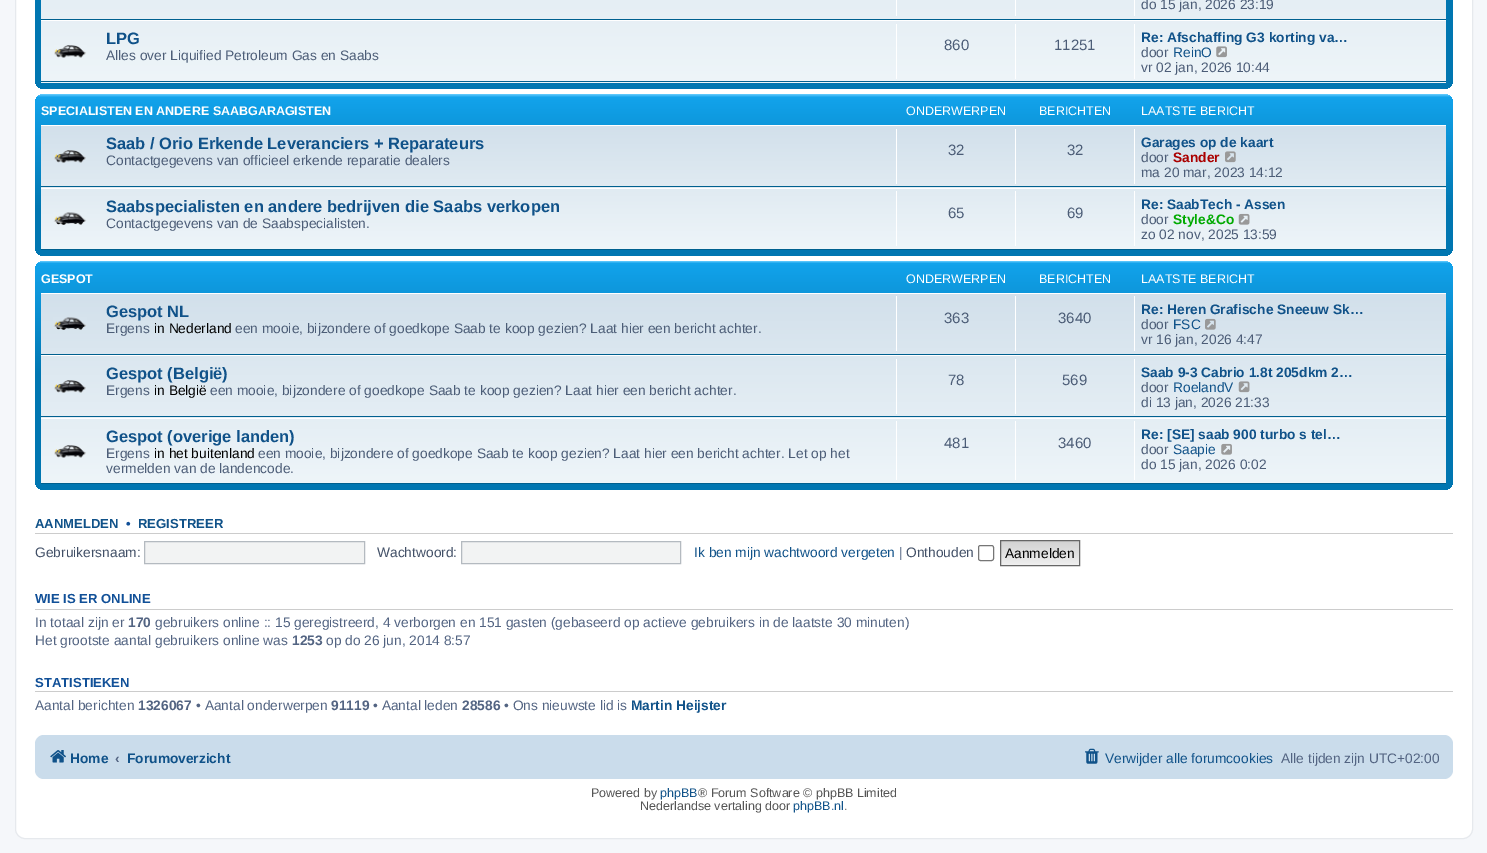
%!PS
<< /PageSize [1487 853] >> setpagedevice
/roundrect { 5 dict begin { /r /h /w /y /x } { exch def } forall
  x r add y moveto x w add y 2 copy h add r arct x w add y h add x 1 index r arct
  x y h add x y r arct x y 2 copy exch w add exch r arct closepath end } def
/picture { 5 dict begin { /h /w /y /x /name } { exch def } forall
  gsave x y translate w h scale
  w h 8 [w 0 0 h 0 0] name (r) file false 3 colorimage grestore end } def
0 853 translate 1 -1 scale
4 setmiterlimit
0.961 0.969 0.98 setrgbcolor
0 0 1487 853 rectfill
1 setgray
15.5 -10.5 1457 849 9.5 roundrect gsave fill grestore
0.902 0.914 0.929 setrgbcolor
stroke
gsave 35 -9 1418 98 9 roundrect clip newpath
<< /ShadingType 2 /ColorSpace /DeviceRGB /Coords [744 -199 744 89] /Extend [true true] /Function << /FunctionType 3 /Domain [0 1] /Functions [<< /FunctionType 2 /Domain [0 1] /C0 [0.416 0.808 1] /C1 [0.071 0.639 0.922] /N 1 >> << /FunctionType 2 /Domain [0 1] /C0 [0.071 0.639 0.922] /C1 [0 0.463 0.694] /N 1 >> << /FunctionType 2 /Domain [0 1] /C0 [0 0.463 0.694] /C1 [0 0.463 0.694] /N 1 >>] /Bounds [0.01 0.4] /Encode [0 1 0 1 0 1] >> >> shfill grestore
gsave newpath 41 0 moveto 1446 0 lineto 1446 83 lineto 41 83 lineto closepath clip newpath
<< /ShadingType 2 /ColorSpace /DeviceRGB /Coords [744 -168 744 83] /Extend [true true] /Function << /FunctionType 2 /Domain [0 1] /C0 [0.824 0.878 0.922] /C1 [0.933 0.961 0.976] /N 1 >> >> shfill grestore
0 0.376 0.561 setrgbcolor
41 19 1405 1 rectfill
1 setgray
896 0 1 16 rectfill
1015 0 1 16 rectfill
1134 0 1 16 rectfill
/LiberationSans-Regular [13.75 0 0 -13.75 0 0] selectfont
0.298 0.365 0.467 setrgbcolor
1141 9 moveto (do 15 jan, 2026 23:19) show
1 setgray
41 20 1405 1 rectfill
0 0.376 0.561 setrgbcolor
41 81 1405 1 rectfill
(img1.rgb) 54 45 33 13 picture
/LiberationSans-Bold [16.5 0 0 -16.5 0 0] selectfont
0.063 0.322 0.537 setrgbcolor
106 44 moveto (LPG) show
/LiberationSans-Regular [13.75 0 0 -13.75 0 0] selectfont
0.298 0.365 0.467 setrgbcolor
106 60 moveto (Alles over Liquified Petroleum Gas en Saabs) show
1 setgray
896 24 1 55 rectfill
/LiberationSans-Regular [15 0 0 -15 0 0] selectfont
0.298 0.365 0.467 setrgbcolor
944 50 moveto (860) show
1 setgray
1015 24 1 55 rectfill
0.298 0.365 0.467 setrgbcolor
1054 50 moveto (11251) show
1 setgray
1134 24 1 55 rectfill
/LiberationSans-Bold [13.75 0 0 -13.75 0 0] selectfont
0.063 0.322 0.537 setrgbcolor
1141 42 moveto (Re: Afschaffing G3 korting va…) show
/LiberationSans-Regular [13.75 0 0 -13.75 0 0] selectfont
0.298 0.365 0.467 setrgbcolor
1141 57 moveto (door) show
0.063 0.322 0.537 setrgbcolor
1173 57 moveto (ReinO) show
(img2.rgb) 1216 46 11 12 picture
0.298 0.365 0.467 setrgbcolor
1141 72 moveto (vr 02 jan, 2026 10:44) show
gsave 35 94 1418 162 9 roundrect clip newpath
<< /ShadingType 2 /ColorSpace /DeviceRGB /Coords [744 94 744 256] /Extend [true true] /Function << /FunctionType 3 /Domain [0 1] /Functions [<< /FunctionType 2 /Domain [0 1] /C0 [0.416 0.808 1] /C1 [0.071 0.639 0.922] /N 1 >> << /FunctionType 2 /Domain [0 1] /C0 [0.071 0.639 0.922] /C1 [0 0.463 0.694] /N 1 >> << /FunctionType 2 /Domain [0 1] /C0 [0 0.463 0.694] /C1 [0 0.463 0.694] /N 1 >>] /Bounds [0.02 0.71] /Encode [0 1 0 1 0 1] >> >> shfill grestore
/LiberationSans-Bold [12.5 0 0 -12.5 0 0] selectfont
1 setgray
41 115 moveto (SPECIALISTEN EN ANDERE SAABGARAGISTEN) show
/LiberationSans-Regular [12.5 0 0 -12.5 0 0] selectfont
906 115 moveto (ONDERWERPEN) show
1039 115 moveto (BERICHTEN) show
1141 115 moveto (LAATSTE BERICHT) show
gsave newpath 41 126 moveto 1446 126 lineto 1446 249 lineto 41 249 lineto closepath clip newpath
<< /ShadingType 2 /ColorSpace /DeviceRGB /Coords [744 125 744 250] /Extend [true true] /Function << /FunctionType 2 /Domain [0 1] /C0 [0.824 0.878 0.922] /C1 [0.933 0.961 0.976] /N 1 >> >> shfill grestore
41 125 1405 1 rectfill
0 0.376 0.561 setrgbcolor
41 186 1405 1 rectfill
(img3.rgb) 54 150 32 13 picture
/LiberationSans-Bold [16.5 0 0 -16.5 0 0] selectfont
0.063 0.322 0.537 setrgbcolor
106 149 moveto (Saab / Orio Erkende Leveranciers + Reparateurs) show
/LiberationSans-Regular [13.75 0 0 -13.75 0 0] selectfont
0.298 0.365 0.467 setrgbcolor
106 165 moveto (Contactgegevens van officieel erkende reparatie dealers) show
1 setgray
896 129 1 55 rectfill
/LiberationSans-Regular [15 0 0 -15 0 0] selectfont
0.298 0.365 0.467 setrgbcolor
948 155 moveto (32) show
1 setgray
1015 129 1 55 rectfill
0.298 0.365 0.467 setrgbcolor
1067 155 moveto (32) show
1 setgray
1134 129 1 55 rectfill
/LiberationSans-Bold [13.75 0 0 -13.75 0 0] selectfont
0.063 0.322 0.537 setrgbcolor
1141 147 moveto (Garages op de kaart) show
/LiberationSans-Regular [13.75 0 0 -13.75 0 0] selectfont
0.298 0.365 0.467 setrgbcolor
1141 162 moveto (door) show
/LiberationSans-Bold [13.75 0 0 -13.75 0 0] selectfont
0.667 0 0 setrgbcolor
1173 162 moveto (Sander) show
(img4.rgb) 1225 151 11 12 picture
/LiberationSans-Regular [13.75 0 0 -13.75 0 0] selectfont
0.298 0.365 0.467 setrgbcolor
1141 177 moveto (ma 20 mar, 2023 14:12) show
1 setgray
41 188 1405 1 rectfill
0 0.376 0.561 setrgbcolor
41 249 1405 1 rectfill
(img5.rgb) 53 212 34 13 picture
/LiberationSans-Bold [16.5 0 0 -16.5 0 0] selectfont
0.063 0.322 0.537 setrgbcolor
106 212 moveto (Saabspecialisten en andere bedrijven die Saabs verkopen) show
/LiberationSans-Regular [13.75 0 0 -13.75 0 0] selectfont
0.298 0.365 0.467 setrgbcolor
106 228 moveto (Contactgegevens van de Saabspecialisten.) show
1 setgray
896 191 1 55 rectfill
/LiberationSans-Regular [15 0 0 -15 0 0] selectfont
0.298 0.365 0.467 setrgbcolor
948 218 moveto (65) show
1 setgray
1015 191 1 55 rectfill
0.298 0.365 0.467 setrgbcolor
1067 218 moveto (69) show
1 setgray
1134 191 1 55 rectfill
/LiberationSans-Bold [13.75 0 0 -13.75 0 0] selectfont
0.063 0.322 0.537 setrgbcolor
1141 209 moveto (Re: SaabTech - Assen) show
/LiberationSans-Regular [13.75 0 0 -13.75 0 0] selectfont
0.298 0.365 0.467 setrgbcolor
1141 224 moveto (door) show
/LiberationSans-Bold [13.75 0 0 -13.75 0 0] selectfont
0 0.667 0 setrgbcolor
1173 224 moveto (Style&Co) show
(img6.rgb) 1238 213 12 12 picture
/LiberationSans-Regular [13.75 0 0 -13.75 0 0] selectfont
0.298 0.365 0.467 setrgbcolor
1141 239 moveto (zo 02 nov, 2025 13:59) show
gsave 35 261 1418 229 9 roundrect clip newpath
<< /ShadingType 2 /ColorSpace /DeviceRGB /Coords [744 261 744 490] /Extend [true true] /Function << /FunctionType 3 /Domain [0 1] /Functions [<< /FunctionType 2 /Domain [0 1] /C0 [0.416 0.808 1] /C1 [0.071 0.639 0.922] /N 1 >> << /FunctionType 2 /Domain [0 1] /C0 [0.071 0.639 0.922] /C1 [0 0.463 0.694] /N 1 >> << /FunctionType 2 /Domain [0 1] /C0 [0 0.463 0.694] /C1 [0 0.463 0.694] /N 1 >>] /Bounds [0.01 0.5] /Encode [0 1 0 1 0 1] >> >> shfill grestore
/LiberationSans-Bold [12.5 0 0 -12.5 0 0] selectfont
1 setgray
41 283 moveto (GESPOT) show
/LiberationSans-Regular [12.5 0 0 -12.5 0 0] selectfont
906 283 moveto (ONDERWERPEN) show
1039 283 moveto (BERICHTEN) show
1141 283 moveto (LAATSTE BERICHT) show
gsave newpath 41 294 moveto 1446 294 lineto 1446 483 lineto 41 483 lineto closepath clip newpath
<< /ShadingType 2 /ColorSpace /DeviceRGB /Coords [744 292 744 484] /Extend [true true] /Function << /FunctionType 2 /Domain [0 1] /C0 [0.824 0.878 0.922] /C1 [0.933 0.961 0.976] /N 1 >> >> shfill grestore
41 293 1405 1 rectfill
0 0.376 0.561 setrgbcolor
41 354 1405 1 rectfill
(img7.rgb) 53 317 34 13 picture
/LiberationSans-Bold [16.5 0 0 -16.5 0 0] selectfont
0.063 0.322 0.537 setrgbcolor
106 317 moveto (Gespot NL) show
/LiberationSans-Regular [13.75 0 0 -13.75 0 0] selectfont
0.298 0.365 0.467 setrgbcolor
106 333 moveto (Ergens) show
0 setgray
154 333 moveto (in Nederland) show
0.298 0.365 0.467 setrgbcolor
235 333 moveto (een mooie, bijzondere of goedkope Saab te koop gezien? Laat hier een bericht achter.) show
1 setgray
896 296 1 55 rectfill
/LiberationSans-Regular [15 0 0 -15 0 0] selectfont
0.298 0.365 0.467 setrgbcolor
944 323 moveto (363) show
1 setgray
1015 296 1 55 rectfill
0.298 0.365 0.467 setrgbcolor
1058 323 moveto (3640) show
1 setgray
1134 296 1 55 rectfill
/LiberationSans-Bold [13.75 0 0 -13.75 0 0] selectfont
0.063 0.322 0.537 setrgbcolor
1141 314 moveto (Re: Heren Grafische Sneeuw Sk…) show
/LiberationSans-Regular [13.75 0 0 -13.75 0 0] selectfont
0.298 0.365 0.467 setrgbcolor
1141 329 moveto (door) show
0.063 0.322 0.537 setrgbcolor
1173 329 moveto (FSC) show
(img8.rgb) 1205 318 11 12 picture
0.298 0.365 0.467 setrgbcolor
1141 344 moveto (vr 16 jan, 2026 4:47) show
1 setgray
41 355 1405 1 rectfill
0 0.376 0.561 setrgbcolor
41 416 1405 1 rectfill
(img9.rgb) 54 380 32 13 picture
/LiberationSans-Bold [16.5 0 0 -16.5 0 0] selectfont
0.063 0.322 0.537 setrgbcolor
106 379 moveto (Gespot \(België\)) show
/LiberationSans-Regular [13.75 0 0 -13.75 0 0] selectfont
0.298 0.365 0.467 setrgbcolor
106 395 moveto (Ergens) show
0 setgray
154 395 moveto (in België) show
0.298 0.365 0.467 setrgbcolor
210 395 moveto (een mooie, bijzondere of goedkope Saab te koop gezien? Laat hier een bericht achter.) show
1 setgray
896 359 1 55 rectfill
/LiberationSans-Regular [15 0 0 -15 0 0] selectfont
0.298 0.365 0.467 setrgbcolor
948 385 moveto (78) show
1 setgray
1015 359 1 55 rectfill
0.298 0.365 0.467 setrgbcolor
1062 385 moveto (569) show
1 setgray
1134 359 1 55 rectfill
/LiberationSans-Bold [13.75 0 0 -13.75 0 0] selectfont
0.063 0.322 0.537 setrgbcolor
1141 377 moveto (Saab 9-3 Cabrio 1.8t 205dkm 2…) show
/LiberationSans-Regular [13.75 0 0 -13.75 0 0] selectfont
0.298 0.365 0.467 setrgbcolor
1141 392 moveto (door) show
0.063 0.322 0.537 setrgbcolor
1173 392 moveto (RoelandV) show
(img10.rgb) 1238 381 12 12 picture
0.298 0.365 0.467 setrgbcolor
1141 407 moveto (di 13 jan, 2026 21:33) show
1 setgray
41 418 1405 1 rectfill
0 0.376 0.561 setrgbcolor
41 483 1405 1 rectfill
(img11.rgb) 54 445 33 13 picture
/LiberationSans-Bold [16.5 0 0 -16.5 0 0] selectfont
0.063 0.322 0.537 setrgbcolor
106 442 moveto (Gespot \(overige landen\)) show
/LiberationSans-Regular [13.75 0 0 -13.75 0 0] selectfont
0.298 0.365 0.467 setrgbcolor
106 458 moveto (Ergens) show
0 setgray
154 458 moveto (in het buitenland) show
0.298 0.365 0.467 setrgbcolor
258 458 moveto (een mooie, bijzondere of goedkope Saab te koop gezien? Laat hier een bericht achter. Let op het) show
106 473 moveto (vermelden van de landencode.) show
1 setgray
896 421 1 59 rectfill
/LiberationSans-Regular [15 0 0 -15 0 0] selectfont
0.298 0.365 0.467 setrgbcolor
944 448 moveto (481) show
1 setgray
1015 421 1 59 rectfill
0.298 0.365 0.467 setrgbcolor
1058 448 moveto (3460) show
1 setgray
1134 421 1 59 rectfill
/LiberationSans-Bold [13.75 0 0 -13.75 0 0] selectfont
0.063 0.322 0.537 setrgbcolor
1141 439 moveto (Re: [SE] saab 900 turbo s tel…) show
/LiberationSans-Regular [13.75 0 0 -13.75 0 0] selectfont
0.298 0.365 0.467 setrgbcolor
1141 454 moveto (door) show
0.063 0.322 0.537 setrgbcolor
1173 454 moveto (Saapie) show
(img12.rgb) 1221 443 11 12 picture
0.298 0.365 0.467 setrgbcolor
1141 469 moveto (do 15 jan, 2026 0:02) show
0.8 setgray
35 533 1418 1 rectfill
/LiberationSans-Bold [13.1 0 0 -13.1 0 0] selectfont
0.063 0.322 0.537 setrgbcolor
35 528 moveto (AANMELDEN) show
0.067 0.314 0.596 setrgbcolor
126 528 moveto (•) show
0.063 0.322 0.537 setrgbcolor
138 528 moveto (REGISTREER) show
/LiberationSans-Regular [13.75 0 0 -13.75 0 0] selectfont
0.259 0.314 0.404 setrgbcolor
35 557 moveto (Gebruikersnaam:) show
0.949 0.953 0.953 setrgbcolor
newpath 144.5 541.5 moveto 364.5 541.5 lineto 364.5 563.5 lineto 144.5 563.5 lineto closepath gsave fill grestore
0.706 0.729 0.753 setrgbcolor
stroke
0.259 0.314 0.404 setrgbcolor
377 557 moveto (Wachtwoord:) show
0.949 0.953 0.953 setrgbcolor
newpath 461.5 541.5 moveto 680.5 541.5 lineto 680.5 563.5 lineto 461.5 563.5 lineto closepath gsave fill grestore
0.706 0.729 0.753 setrgbcolor
stroke
0.063 0.322 0.537 setrgbcolor
694 557 moveto (Ik ben mijn wachtwoord vergeten) show
0.325 0.392 0.51 setrgbcolor
899 557 moveto (|) show
0.259 0.314 0.404 setrgbcolor
906 557 moveto (Onthouden) show
0.463 setgray
978.5 545.5 15 15 2 roundrect stroke
gsave newpath 1001 541 moveto 1079 541 lineto 1079 565 lineto 1001 565 lineto closepath clip newpath
<< /ShadingType 2 /ColorSpace /DeviceRGB /Coords [1040 541 1040 565] /Extend [true true] /Function << /FunctionType 2 /Domain [0 1] /C0 [0.824 0.824 0.824] /C1 [0.937 0.937 0.937] /N 1 >> >> shfill grestore
0.4 setgray
1000.5 540.5 79 25 rectstroke
0 setgray
1005 558 moveto (Aanmelden) show
0.8 setgray
35 609 1418 1 rectfill
/LiberationSans-Bold [13.1 0 0 -13.1 0 0] selectfont
0.067 0.314 0.596 setrgbcolor
35 603 moveto (WIE IS ER ONLINE) show
/LiberationSans-Regular [13.75 0 0 -13.75 0 0] selectfont
0.325 0.392 0.51 setrgbcolor
35 627 moveto (In totaal zijn er) show
/LiberationSans-Bold [13.75 0 0 -13.75 0 0] selectfont
128 627 moveto (170) show
/LiberationSans-Regular [13.75 0 0 -13.75 0 0] selectfont
155 627 moveto (gebruikers online :: 15 geregistreerd, 4 verborgen en 151 gasten \(gebaseerd op actieve gebruikers in de laatste 30 minuten\)) show
35 645 moveto (Het grootste aantal gebruikers online was) show
/LiberationSans-Bold [13.75 0 0 -13.75 0 0] selectfont
292 645 moveto (1253) show
/LiberationSans-Regular [13.75 0 0 -13.75 0 0] selectfont
326 645 moveto (op do 26 jun, 2014 8:57) show
0.8 setgray
35 691 1418 1 rectfill
/LiberationSans-Bold [13.1 0 0 -13.1 0 0] selectfont
0.067 0.314 0.596 setrgbcolor
35 687 moveto (STATISTIEKEN) show
/LiberationSans-Regular [13.75 0 0 -13.75 0 0] selectfont
0.325 0.392 0.51 setrgbcolor
35 710 moveto (Aantal berichten) show
/LiberationSans-Bold [13.75 0 0 -13.75 0 0] selectfont
138 710 moveto (1326067) show
/LiberationSans-Regular [13.75 0 0 -13.75 0 0] selectfont
196 710 moveto (• Aantal onderwerpen) show
/LiberationSans-Bold [13.75 0 0 -13.75 0 0] selectfont
331 710 moveto (91119) show
/LiberationSans-Regular [13.75 0 0 -13.75 0 0] selectfont
373 710 moveto (• Aantal leden) show
/LiberationSans-Bold [13.75 0 0 -13.75 0 0] selectfont
462 710 moveto (28586) show
/LiberationSans-Regular [13.75 0 0 -13.75 0 0] selectfont
504 710 moveto (• Ons nieuwste lid is) show
/LiberationSans-Bold [13.75 0 0 -13.75 0 0] selectfont
0.063 0.322 0.537 setrgbcolor
631 710 moveto (Martin Heijster) show
0.792 0.863 0.922 setrgbcolor
35 735 1418 44 9 roundrect fill
(img13.rgb) 50 750 16 13 picture
0.063 0.322 0.537 setrgbcolor
70 763 moveto (Home) show
0.325 0.392 0.51 setrgbcolor
115 763 moveto (‹) show
0.063 0.322 0.537 setrgbcolor
127 763 moveto (Forumoverzicht) show
(img14.rgb) 1085 748 14 16 picture
/LiberationSans-Regular [13.75 0 0 -13.75 0 0] selectfont
1105 763 moveto (Verwijder alle forumcookies) show
0.325 0.392 0.51 setrgbcolor
1281 763 moveto (Alle tijden zijn UTC+02:00) show
/LiberationSans-Regular [12.5 0 0 -12.5 0 0] selectfont
0.333 setgray
591 797 moveto (Powered by) show
0.063 0.322 0.537 setrgbcolor
660 797 moveto (phpBB) show
0.333 setgray
698 797 moveto (® Forum Software © phpBB Limited) show
640 810 moveto (Nederlandse vertaling door) show
0.063 0.322 0.537 setrgbcolor
793 810 moveto (phpBB.nl) show
0.333 setgray
844 810 moveto (.) show
showpage
